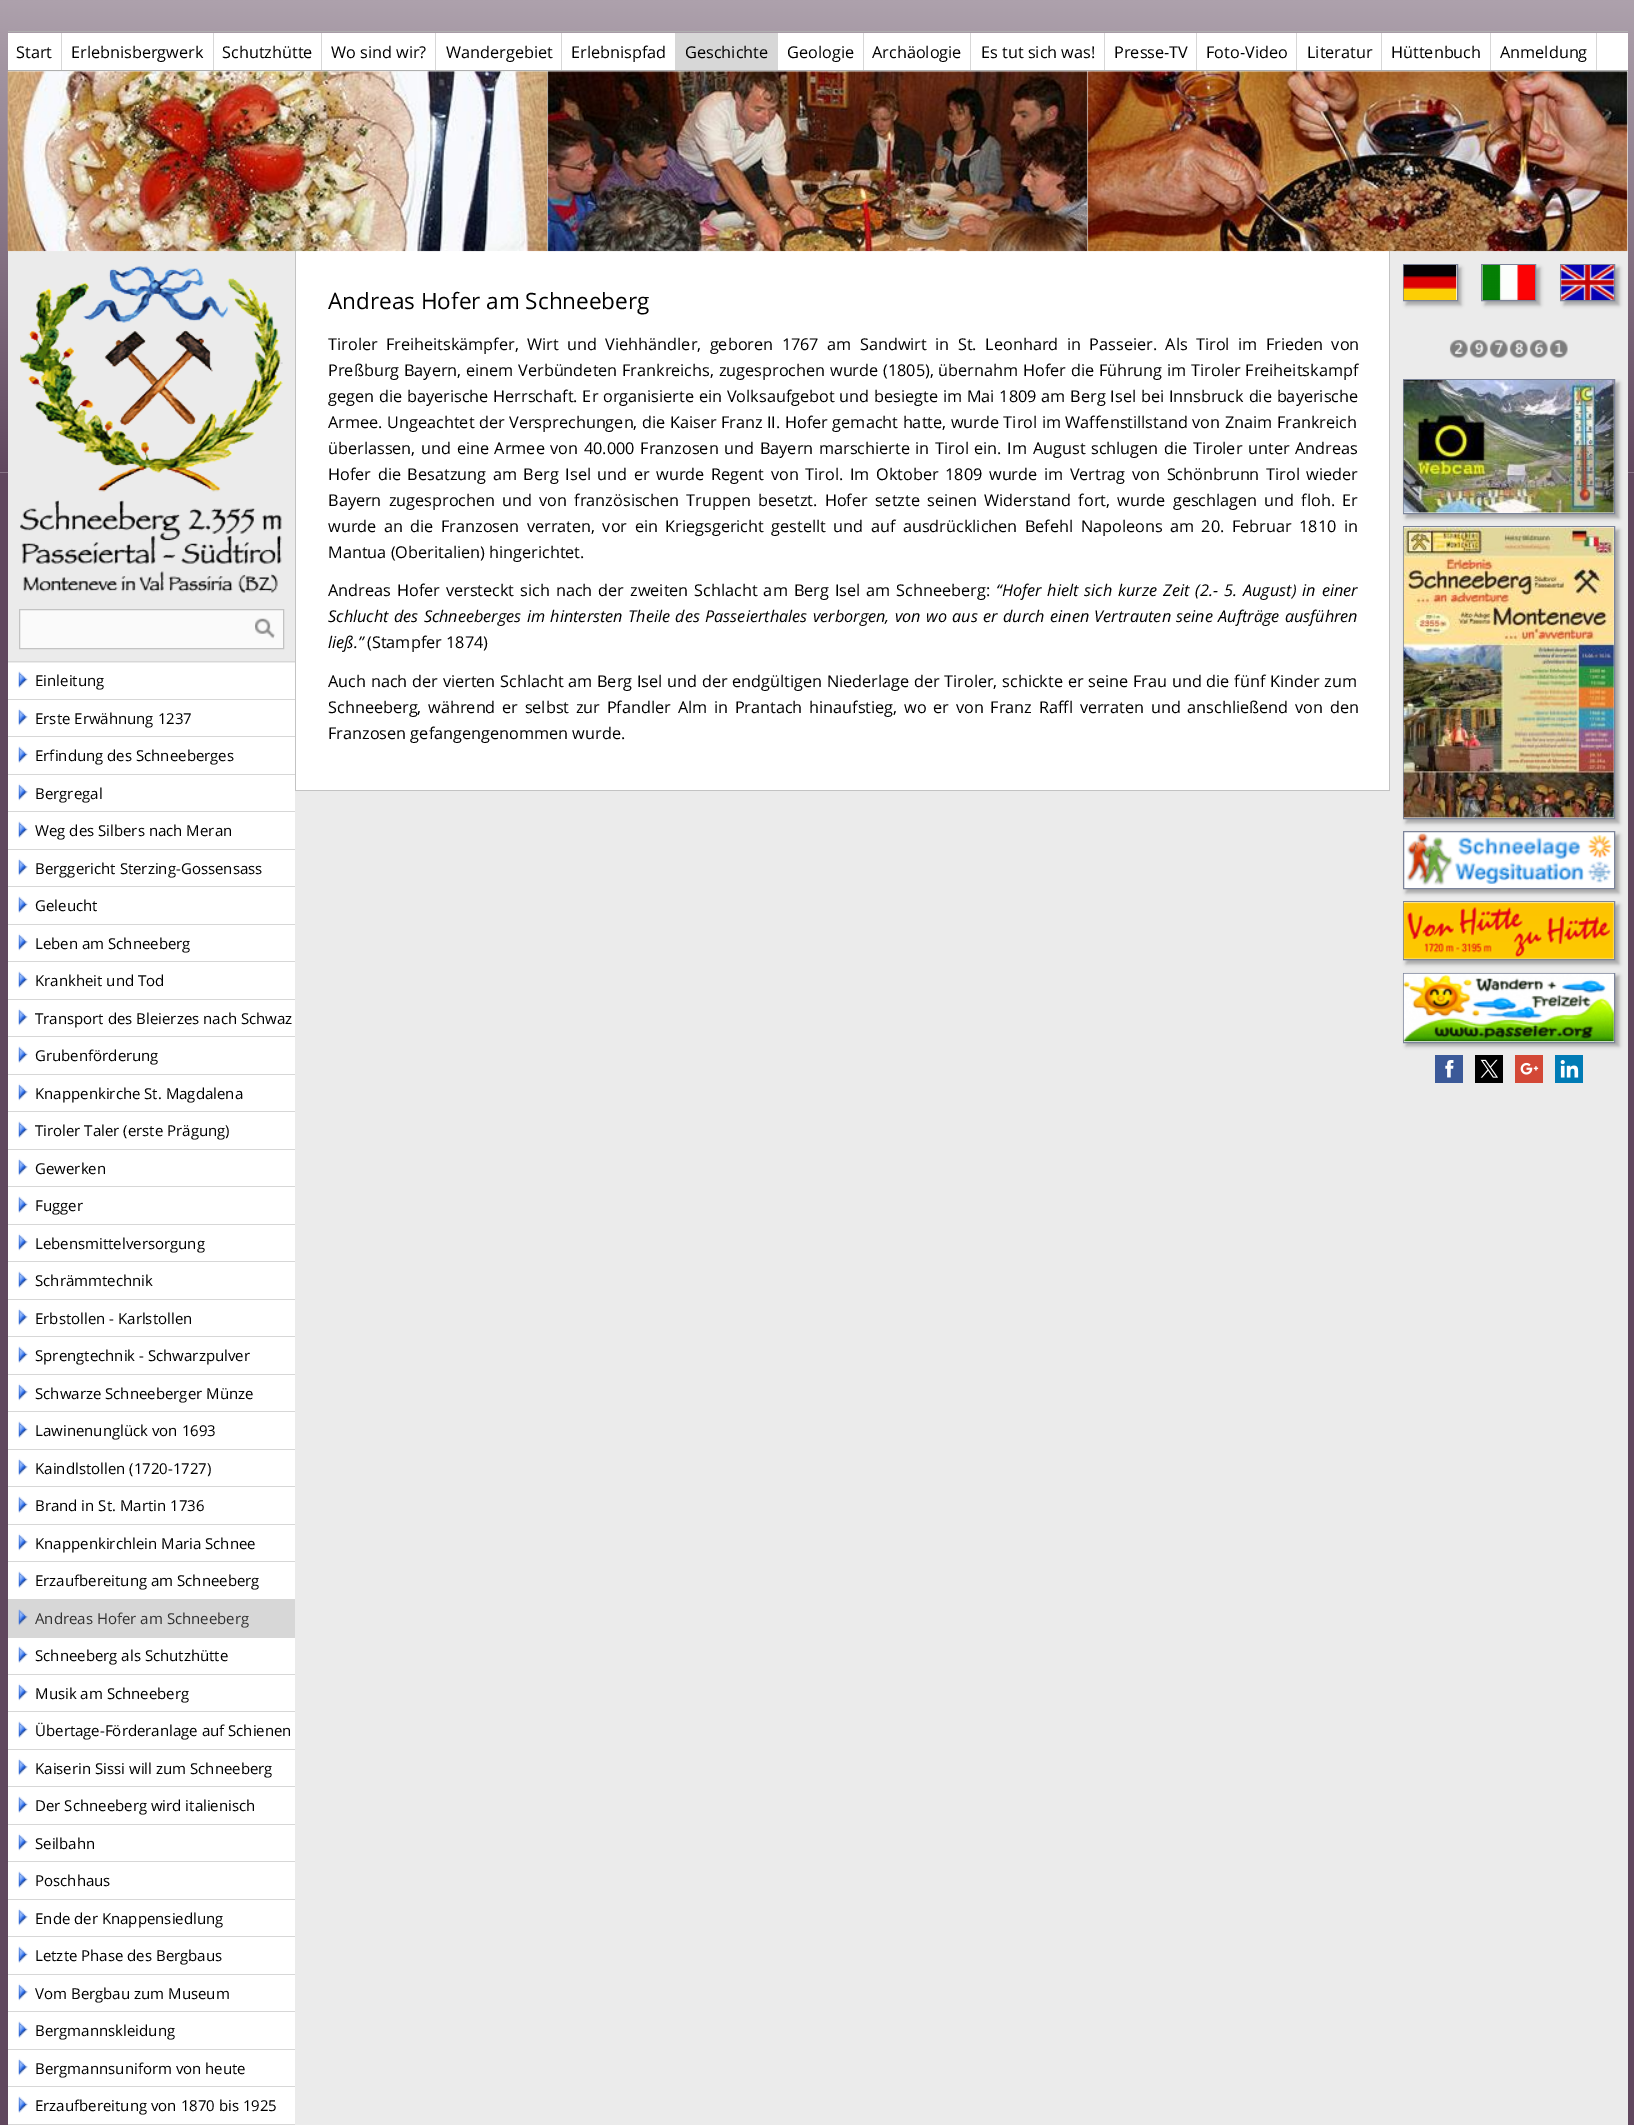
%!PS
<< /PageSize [1634 2125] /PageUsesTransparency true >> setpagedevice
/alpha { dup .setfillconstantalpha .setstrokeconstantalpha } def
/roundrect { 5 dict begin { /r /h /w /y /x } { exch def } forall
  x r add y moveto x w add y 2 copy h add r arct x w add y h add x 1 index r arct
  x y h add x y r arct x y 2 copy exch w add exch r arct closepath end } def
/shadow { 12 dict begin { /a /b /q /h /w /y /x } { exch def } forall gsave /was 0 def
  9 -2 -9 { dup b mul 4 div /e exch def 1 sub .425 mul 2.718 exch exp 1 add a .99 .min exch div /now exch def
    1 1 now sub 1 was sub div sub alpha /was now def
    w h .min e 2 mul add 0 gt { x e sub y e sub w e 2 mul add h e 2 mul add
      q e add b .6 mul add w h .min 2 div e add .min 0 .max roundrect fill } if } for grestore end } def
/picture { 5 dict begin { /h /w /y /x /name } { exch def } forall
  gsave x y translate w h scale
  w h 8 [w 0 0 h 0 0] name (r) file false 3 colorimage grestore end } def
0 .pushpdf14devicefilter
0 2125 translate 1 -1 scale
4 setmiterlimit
0.376 0.278 0.369 setrgbcolor
0 0 1634 2125 rectfill
(img1.rgb) 0 0 1634 473 picture
1 setgray
8 33 1620 37 rectfill
0.686 setgray
8 31 1620 1 rectfill
8 70 1620 1 rectfill
0.843 setgray
61 33 1 37 rectfill
/OpenSans-Regular [16.25 0 0 -16.25 0 0] selectfont
0 setgray
16 58 moveto (Start) show
0.843 setgray
213 33 1 37 rectfill
0 setgray
71 58 moveto (Erlebnisbergwerk) show
0.843 setgray
321 33 1 37 rectfill
0 setgray
222 58 moveto (Schutzhütte) show
0.843 setgray
435 33 1 37 rectfill
0 setgray
331 58 moveto (Wo sind wir?) show
0.843 setgray
561 33 1 37 rectfill
0 setgray
446 58 moveto (Wandergebiet) show
0.843 setgray
675 33 103 37 rectfill
0 setgray
571 58 moveto (Erlebnispfad) show
685 58 moveto (Geschichte) show
0.843 setgray
863 33 1 37 rectfill
0 setgray
787 58 moveto (Geologie) show
0.843 setgray
970 33 1 37 rectfill
0 setgray
872 58 moveto (Archäologie) show
0.843 setgray
1104 33 1 37 rectfill
0 setgray
981 58 moveto (Es tut sich was!) show
0.843 setgray
1196 33 1 37 rectfill
0 setgray
1114 58 moveto (Presse-TV) show
0.843 setgray
1296 33 1 37 rectfill
0 setgray
1206 58 moveto (Foto-Video) show
0.843 setgray
1381 33 1 37 rectfill
0 setgray
1307 58 moveto (Literatur) show
0.843 setgray
1490 33 1 37 rectfill
0 setgray
1391 58 moveto (Hüttenbuch) show
0.843 setgray
1596 33 1 37 rectfill
0 setgray
1500 58 moveto (Anmeldung) show
0.922 setgray
8 71 1620 2054 rectfill
1 setgray
296 251 1093 539 rectfill
0.765 setgray
1389 251 1 540 rectfill
295 790 1095 1 rectfill
295 251 1 540 rectfill
(img2.rgb) 7 71 541 181 picture
(img3.rgb) 547 71 541 181 picture
(img4.rgb) 1087 71 541 181 picture
/OpenSans-Regular [22.5 0 0 -22.5 0 0] selectfont
0 setgray
328 309 moveto (Andreas Hofer am Schneeberg) show
/OpenSans-Regular [16.25 0 0 -16.25 0 0] selectfont
328 350 moveto 4.25 0 32 (Tiroler Freiheitskämpfer, Wirt und Viehhändler, geboren 1767 am Sandwirt in St. Leonhard in Passeier. Als Tirol im Frieden von) widthshow
328 376 moveto 0.5 0 32 (Preßburg Bayern, einem Verbündeten Frankreichs, zugesprochen wurde \(1805\), übernahm Hofer die Führung im Tiroler Freiheitskampf) widthshow
328 402 moveto 0.6 0 32 (gegen die bayerische Herrschaft. Er organisierte ein Volksaufgebot und besiegte im Mai 1809 am Berg Isel bei Innsbruck die bayerische) widthshow
328 428 moveto 0.3 0 32 (Armee. Ungeachtet der Versprechungen, die Kaiser Franz II. Hofer gemacht hatte, wurde Tirol im Waffenstillstand von Znaim Frankreich) widthshow
328 454 moveto 1.4 0 32 (überlassen, und eine Armee von 40.000 Franzosen und Bayern marschierte in Tirol ein. Im August schlugen die Tiroler unter Andreas) widthshow
328 480 moveto 2.4 0 32 (Hofer die Besatzung am Berg Isel und er wurde Regent von Tirol. Im Oktober 1809 wurde im Vertrag von Schönbrunn Tirol wieder) widthshow
328 506 moveto 2.9 0 32 (Bayern zugesprochen und von französischen Truppen besetzt. Hofer setzte seinen Widerstand fort, wurde geschlagen und floh. Er) widthshow
328 532 moveto 3.25 0 32 (wurde an die Franzosen verraten, vor ein Kriegsgericht gestellt und auf ausdrücklichen Befehl Napoleons am 20. Februar 1810 in) widthshow
328 558 moveto (Mantua \(Oberitalien\) hingerichtet.) show
328 596 moveto 1.75 0 32 (Andreas Hofer versteckt sich nach der zweiten Schlacht am Berg Isel am Schneeberg:) widthshow
/OpenSans-Italic [16.25 0 0 -16.25 0 0] selectfont
996 596 moveto 1.75 0 32 (“Hofer hielt sich kurze Zeit \(2.- 5. August\) in einer) widthshow
328 622 moveto 1.1 0 32 (Schlucht des Schneeberges im hintersten Theile des Passeierthales verborgen, von wo aus er durch einen Vertrauten seine Aufträge ausführen) widthshow
328 648 moveto (ließ.”) show
/OpenSans-Regular [16.25 0 0 -16.25 0 0] selectfont
367 648 moveto (\(Stampfer 1874\)) show
328 687 moveto 0.5 0 32 (Auch nach der vierten Schlacht am Berg Isel und der endgültigen Niederlage der Tiroler, schickte er seine Frau und die fünf Kinder zum) widthshow
328 713 moveto 2.5 0 32 (Schneeberg, während er selbst zur Pfandler Alm in Prantach hinaufstieg, wo er von Franz Raffl verraten und anschließend von den) widthshow
328 739 moveto (Franzosen gefangengenommen wurde.) show
1406 268 55 37 0 2 0.3 shadow
1 setgray
1456 265 1 35 rectfill
0.482 0.514 0.6 setrgbcolor
1403.5 264.5 54 36 rectstroke
(img5.rgb) 1403 265 54 35 picture
0 setgray
1485 268 55 37 0 2 0.3 shadow
1 setgray
1482 265 1 35 rectfill
0.482 0.514 0.6 setrgbcolor
1481.5 264.5 54 36 rectstroke
(img6.rgb) 1482 265 53 35 picture
0 setgray
1564 268 55 37 0 2 0.3 shadow
0.482 0.514 0.6 setrgbcolor
1560.5 264.5 54 36 rectstroke
(img7.rgb) 1561 265 53 35 picture
(img8.rgb) 1449 339 119 19 picture
0 setgray
1406 383 213 135 0 2 0.3 shadow
1 setgray
newpath 1403.5 379.5 moveto 1614.5 379.5 lineto 1614.5 513.5 lineto 1403.5 513.5 lineto closepath gsave fill grestore
0.482 0.514 0.6 setrgbcolor
stroke
(img9.rgb) 1403 380 211 133 picture
0 setgray
1406 530 213 293 0 2 0.3 shadow
1 setgray
newpath 1403.5 526.5 moveto 1614.5 526.5 lineto 1614.5 818.5 lineto 1403.5 818.5 lineto closepath gsave fill grestore
0.482 0.514 0.6 setrgbcolor
stroke
(img10.rgb) 1403 527 211 291 picture
0 setgray
1406 835 213 58 0 2 0.3 shadow
1 setgray
newpath 1403.5 831.5 moveto 1614.5 831.5 lineto 1614.5 888.5 lineto 1403.5 888.5 lineto closepath gsave fill grestore
0.482 0.514 0.6 setrgbcolor
stroke
(img11.rgb) 1406 833 206 53 picture
0 setgray
1406 905 213 59 0 2 0.3 shadow
1 setgray
newpath 1403.5 901.5 moveto 1614.5 901.5 lineto 1614.5 959.5 lineto 1403.5 959.5 lineto closepath gsave fill grestore
0.482 0.514 0.6 setrgbcolor
stroke
(img12.rgb) 1403 902 211 57 picture
0 setgray
1406 976 213 70 0 2 0.3 shadow
1 setgray
newpath 1403.5 973.5 moveto 1614.5 973.5 lineto 1614.5 1042.5 lineto 1403.5 1042.5 lineto closepath gsave fill grestore
0.482 0.514 0.6 setrgbcolor
stroke
(img13.rgb) 1403 973 211 69 picture
0.231 0.349 0.596 setrgbcolor
1435 1055 28 28 rectfill
(img14.rgb) 1445 1060 9 18 picture
0 setgray
1475 1055 28 28 rectfill
(img15.rgb) 1480 1059 18 19 picture
0.827 0.282 0.212 setrgbcolor
1515 1055 28 28 rectfill
(img16.rgb) 1520 1062 19 13 picture
0 0.482 0.71 setrgbcolor
1555 1055 28 28 rectfill
(img17.rgb) 1560 1060 19 18 picture
(img18.rgb) 20 266 263 327 picture
0.98 setgray
newpath 19.5 609.5 moveto 283.5 609.5 lineto 283.5 648.5 lineto 19.5 648.5 lineto closepath gsave fill grestore
0.765 setgray
stroke
(img19.rgb) 255 618 20 21 picture
1 setgray
8 663 287 1461 rectfill
0.843 setgray
8 661 287 1 rectfill
(img20.rgb) 18 671 10 17 picture
8 699 287 1 rectfill
/OpenSans-Regular [15 0 0 -15 0 0] selectfont
0 setgray
35 686 moveto (Einleitung) show
(img21.rgb) 18 708 10 18 picture
0.843 setgray
8 736 287 1 rectfill
0 setgray
35 724 moveto (Erste Erwähnung 1237) show
(img20.rgb) 18 746 10 17 picture
0.843 setgray
8 774 287 1 rectfill
0 setgray
35 761 moveto (Erfindung des Schneeberges) show
(img21.rgb) 18 783 10 18 picture
0.843 setgray
8 811 287 1 rectfill
0 setgray
35 799 moveto (Bergregal) show
(img20.rgb) 18 821 10 17 picture
0.843 setgray
8 849 287 1 rectfill
0 setgray
35 836 moveto (Weg des Silbers nach Meran) show
(img21.rgb) 18 858 10 18 picture
0.843 setgray
8 886 287 1 rectfill
0 setgray
35 874 moveto (Berggericht Sterzing-Gossensass) show
(img20.rgb) 18 896 10 17 picture
0.843 setgray
8 924 287 1 rectfill
0 setgray
35 911 moveto (Geleucht) show
(img21.rgb) 18 933 10 18 picture
0.843 setgray
8 961 287 1 rectfill
0 setgray
35 949 moveto (Leben am Schneeberg) show
(img20.rgb) 18 971 10 17 picture
0.843 setgray
8 999 287 1 rectfill
0 setgray
35 986 moveto (Krankheit und Tod) show
(img21.rgb) 18 1008 10 18 picture
0.843 setgray
8 1036 287 1 rectfill
0 setgray
35 1024 moveto (Transport des Bleierzes nach Schwaz) show
(img20.rgb) 18 1046 10 17 picture
0.843 setgray
8 1074 287 1 rectfill
0 setgray
35 1061 moveto (Grubenförderung) show
(img21.rgb) 18 1083 10 18 picture
0.843 setgray
8 1111 287 1 rectfill
0 setgray
35 1099 moveto (Knappenkirche St. Magdalena) show
(img20.rgb) 18 1121 10 17 picture
0.843 setgray
8 1149 287 1 rectfill
0 setgray
35 1136 moveto (Tiroler Taler \(erste Prägung\)) show
(img21.rgb) 18 1158 10 18 picture
0.843 setgray
8 1186 287 1 rectfill
0 setgray
35 1174 moveto (Gewerken) show
(img20.rgb) 18 1196 10 17 picture
0.843 setgray
8 1224 287 1 rectfill
0 setgray
35 1211 moveto (Fugger) show
(img21.rgb) 18 1233 10 18 picture
0.843 setgray
8 1261 287 1 rectfill
0 setgray
35 1249 moveto (Lebensmittelversorgung) show
(img20.rgb) 18 1271 10 17 picture
0.843 setgray
8 1299 287 1 rectfill
0 setgray
35 1286 moveto (Schrämmtechnik) show
(img21.rgb) 18 1308 10 18 picture
0.843 setgray
8 1336 287 1 rectfill
0 setgray
35 1324 moveto (Erbstollen - Karlstollen) show
(img20.rgb) 18 1346 10 17 picture
0.843 setgray
8 1374 287 1 rectfill
0 setgray
35 1361 moveto (Sprengtechnik - Schwarzpulver) show
(img21.rgb) 18 1383 10 18 picture
0.843 setgray
8 1411 287 1 rectfill
0 setgray
35 1399 moveto (Schwarze Schneeberger Münze) show
(img20.rgb) 18 1421 10 17 picture
0.843 setgray
8 1449 287 1 rectfill
0 setgray
35 1436 moveto (Lawinenunglück von 1693) show
(img21.rgb) 18 1458 10 18 picture
0.843 setgray
8 1486 287 1 rectfill
0 setgray
35 1474 moveto (Kaindlstollen \(1720-1727\)) show
(img20.rgb) 18 1496 10 17 picture
0.843 setgray
8 1524 287 1 rectfill
0 setgray
35 1511 moveto (Brand in St. Martin 1736) show
(img21.rgb) 18 1533 10 18 picture
0.843 setgray
8 1561 287 1 rectfill
0 setgray
35 1549 moveto (Knappenkirchlein Maria Schnee) show
(img20.rgb) 18 1571 10 17 picture
0.843 setgray
8 1599 287 39 rectfill
0 setgray
35 1586 moveto (Erzaufbereitung am Schneeberg) show
(img22.rgb) 18 1609 10 17 picture
0.196 setgray
35 1624 moveto (Andreas Hofer am Schneeberg) show
(img20.rgb) 18 1646 10 17 picture
0.843 setgray
8 1674 287 1 rectfill
0 setgray
35 1661 moveto (Schneeberg als Schutzhütte) show
(img21.rgb) 18 1683 10 18 picture
0.843 setgray
8 1711 287 1 rectfill
0 setgray
35 1699 moveto (Musik am Schneeberg) show
(img20.rgb) 18 1721 10 17 picture
0.843 setgray
8 1749 287 1 rectfill
0 setgray
35 1736 moveto (Übertage-Förderanlage auf Schienen) show
(img21.rgb) 18 1758 10 18 picture
0.843 setgray
8 1786 287 1 rectfill
0 setgray
35 1774 moveto (Kaiserin Sissi will zum Schneeberg) show
(img20.rgb) 18 1796 10 17 picture
0.843 setgray
8 1824 287 1 rectfill
0 setgray
35 1811 moveto (Der Schneeberg wird italienisch) show
(img21.rgb) 18 1833 10 18 picture
0.843 setgray
8 1861 287 1 rectfill
0 setgray
35 1849 moveto (Seilbahn) show
(img20.rgb) 18 1871 10 17 picture
0.843 setgray
8 1899 287 1 rectfill
0 setgray
35 1886 moveto (Poschhaus) show
(img21.rgb) 18 1908 10 18 picture
0.843 setgray
8 1936 287 1 rectfill
0 setgray
35 1924 moveto (Ende der Knappensiedlung) show
(img20.rgb) 18 1946 10 17 picture
0.843 setgray
8 1974 287 1 rectfill
0 setgray
35 1961 moveto (Letzte Phase des Bergbaus) show
(img21.rgb) 18 1983 10 18 picture
0.843 setgray
8 2011 287 1 rectfill
0 setgray
35 1999 moveto (Vom Bergbau zum Museum) show
(img20.rgb) 18 2021 10 17 picture
0.843 setgray
8 2049 287 1 rectfill
0 setgray
35 2036 moveto (Bergmannskleidung) show
(img21.rgb) 18 2058 10 18 picture
0.843 setgray
8 2086 287 1 rectfill
0 setgray
35 2074 moveto (Bergmannsuniform von heute) show
(img20.rgb) 18 2096 10 17 picture
0.843 setgray
8 2124 287 1 rectfill
0 setgray
35 2111 moveto (Erzaufbereitung von 1870 bis 1925) show
.poppdf14devicefilter showpage
